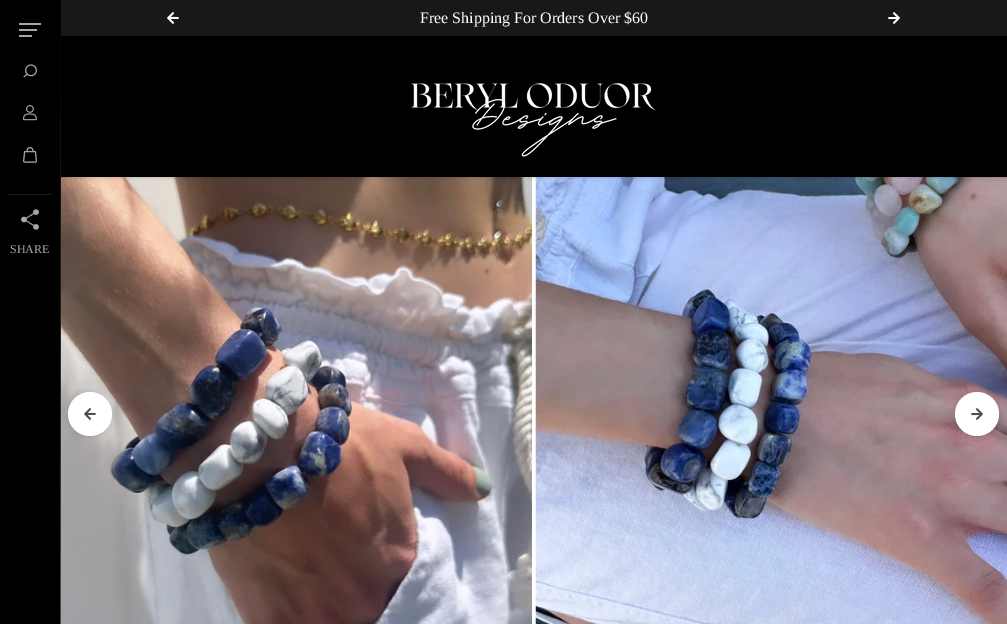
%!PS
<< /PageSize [1007 624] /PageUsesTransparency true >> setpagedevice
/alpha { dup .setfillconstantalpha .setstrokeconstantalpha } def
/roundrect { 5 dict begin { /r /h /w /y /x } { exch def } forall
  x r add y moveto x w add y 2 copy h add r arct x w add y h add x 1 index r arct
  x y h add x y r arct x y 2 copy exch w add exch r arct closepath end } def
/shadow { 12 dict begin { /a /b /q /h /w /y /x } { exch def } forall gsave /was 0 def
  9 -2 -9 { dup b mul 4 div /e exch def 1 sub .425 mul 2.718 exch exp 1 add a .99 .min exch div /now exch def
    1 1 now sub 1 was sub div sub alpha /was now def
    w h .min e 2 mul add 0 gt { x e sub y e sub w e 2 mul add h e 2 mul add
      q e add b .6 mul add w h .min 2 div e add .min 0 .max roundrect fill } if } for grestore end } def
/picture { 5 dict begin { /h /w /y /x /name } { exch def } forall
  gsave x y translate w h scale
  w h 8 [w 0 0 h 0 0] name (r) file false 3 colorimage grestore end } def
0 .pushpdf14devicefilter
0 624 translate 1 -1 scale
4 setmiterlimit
0.094 setgray
0 0 1007 624 rectfill
(img1.rgb) 167 12 12 12 picture
/LiberationSerif-Regular [16 0 0 -16 0 0] selectfont
1 setgray
420 23 moveto (Free Shipping For Orders Over $60) show
(img2.rgb) 888 12 12 12 picture
532 177 4 447 rectfill
(img8.rgb) 61 177 471 447 picture
(img9.rgb) 535 177 472 447 picture
0 setgray
60 36 947 141 0 2 0.21 shadow
61 36 946 141 rectfill
(img3.rgb) 411 83 245 74 picture
68 392 44 44 22 3 0.12 shadow
gsave newpath 60 0 moveto 61 0 lineto 61 624 lineto 60 624 lineto closepath clip newpath
<< /ShadingType 2 /ColorSpace /DeviceRGB /Coords [61 0 61 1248] /Extend [true true] /Function << /FunctionType 3 /Domain [0 1] /Functions [<< /FunctionType 2 /Domain [0 1] /C0 [0 0 0] /C1 [0.282 0.275 0.275] /N 1 >> << /FunctionType 2 /Domain [0 1] /C0 [0.282 0.275 0.275] /C1 [0 0 0] /N 1 >>] /Bounds [0.5] /Encode [0 1 0 1] >> >> shfill grestore
0 0 60 624 rectfill
0.651 setgray
19 23 22 2 rectfill
19 29 18 2 rectfill
19 35 13 2 rectfill
(img4.rgb) 23 64 14 14 picture
(img5.rgb) 23 105 14 16 picture
(img6.rgb) 23 147 14 16 picture
0.106 setgray
8 194 44 1 rectfill
(img7.rgb) 21 209 18 21 picture
/LiberationSerif-Regular [12 0 0 -12 0 0] selectfont
0.651 setgray
10 253 moveto (SHARE) show
1 setgray
newpath 90 414 22 0 360 arc closepath fill
(img10.rgb) 84 408 12 12 picture
0 setgray
955 392 44 44 22 3 0.12 shadow
1 setgray
newpath 977 414 22 0 360 arc closepath fill
(img11.rgb) 971 408 12 12 picture
.poppdf14devicefilter showpage
